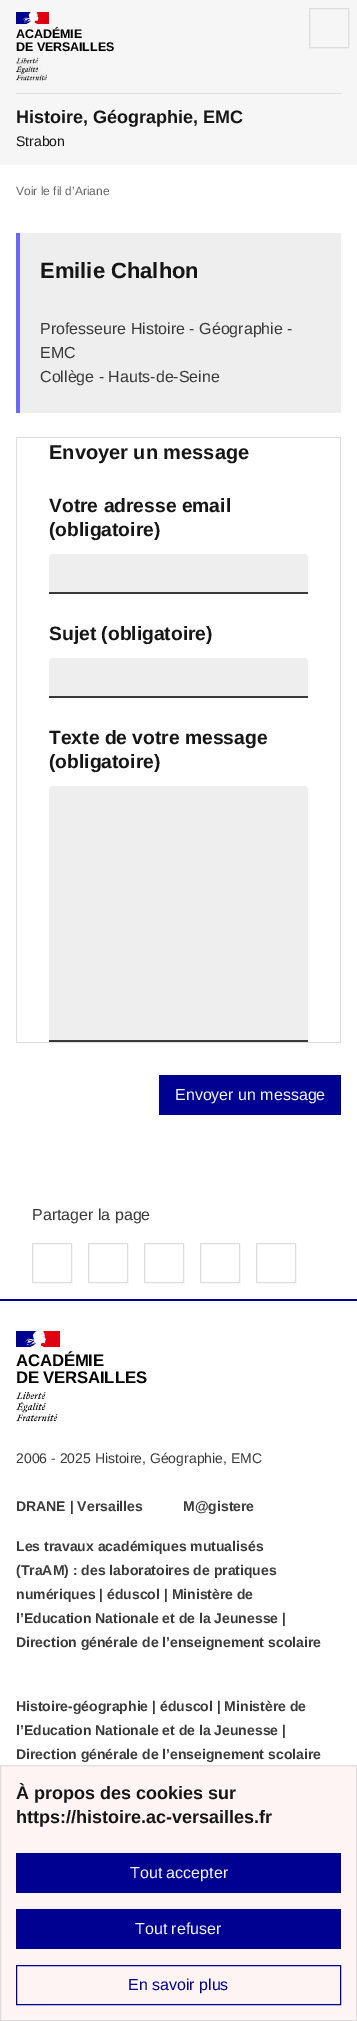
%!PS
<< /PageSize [357 2021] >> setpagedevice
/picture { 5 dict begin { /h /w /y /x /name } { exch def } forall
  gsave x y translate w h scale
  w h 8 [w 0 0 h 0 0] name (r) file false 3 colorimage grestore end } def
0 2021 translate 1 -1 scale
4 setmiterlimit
1 setgray
0 0 357 2021 rectfill
0.965 setgray
0 0 357 165 rectfill
0 0 0.569 setrgbcolor
16 12 16 12 rectfill
0.882 0 0.059 setrgbcolor
34 12 15 12 rectfill
(img1.rgb) 23 12 16 12 picture
/LiberationSans-Bold [12.5 0 0 -12.5 0 0] selectfont
0 setgray
16 38 moveto -0.1 0 (ACADÉMIE) ashow
16 51 moveto -0.1 0 (DE VERSAILLES) ashow
(img2.rgb) 16 58 31 23 picture
0.867 setgray
309.5 8.5 39 39 rectstroke
16 93 325 1 rectfill
/LiberationSans-Bold [18 0 0 -18 0 0] selectfont
0.086 setgray
16 123 moveto (Histoire, Géographie, EMC) show
/LiberationSans-Regular [14 0 0 -14 0 0] selectfont
16 146 moveto (Strabon) show
/LiberationSans-Regular [12 0 0 -12 0 0] selectfont
0.4 setgray
16 195 moveto (Voir le fil d’Ariane) show
0.933 setgray
20 233 321 180 rectfill
0.416 0.416 0.957 setrgbcolor
16 233 4 180 rectfill
/LiberationSans-Bold [22 0 0 -22 0 0] selectfont
0.086 setgray
40 278 moveto (Emilie Chalhon) show
/LiberationSans-Regular [16 0 0 -16 0 0] selectfont
0.227 setgray
40 334 moveto (Professeure Histoire - Géographie -) show
40 358 moveto (EMC) show
40 382 moveto (Collège - Hauts-de-Seine) show
0.867 setgray
16 437 325 1 rectfill
340 437 1 606 rectfill
16 437 1 606 rectfill
16 1042 325 1 rectfill
/LiberationSans-Bold [20 0 0 -20 0 0] selectfont
0.086 setgray
49 459 moveto (Envoyer un message) show
/LiberationSans-Bold [19.25 0 0 -19.25 0 0] selectfont
49 512 moveto (Votre adresse email) show
49 536 moveto (\(obligatoire\)) show
0.933 setgray
newpath 53 554 moveto 304 554 lineto 306 554 308 556 308 558 curveto 308 594 lineto 49 594 lineto 49 558 lineto 49 556 51 554 53 554 curveto closepath fill
0.227 setgray
49 592 259 2 rectfill
0.086 setgray
49 640 moveto (Sujet \(obligatoire\)) show
0.933 setgray
newpath 53 658 moveto 304 658 lineto 306 658 308 660 308 662 curveto 308 698 lineto 49 698 lineto 49 662 lineto 49 660 51 658 53 658 curveto closepath fill
0.227 setgray
49 696 259 2 rectfill
0.086 setgray
49 744 moveto (Texte de votre message) show
49 768 moveto (\(obligatoire\)) show
0.933 setgray
newpath 53 786 moveto 304 786 lineto 306 786 308 788 308 790 curveto 308 1042 lineto 49 1042 lineto 49 790 lineto 49 788 51 786 53 786 curveto closepath fill
0.227 setgray
49 1040 259 2 rectfill
0 0 0.569 setrgbcolor
159 1075 182 40 rectfill
/LiberationSans-Regular [16 0 0 -16 0 0] selectfont
0.961 0.961 0.996 setrgbcolor
175 1100 moveto (Envoyer un message) show
0.227 setgray
32 1220 moveto (Partager la page) show
0.867 setgray
32.5 1243.5 39 39 rectstroke
88.5 1243.5 39 39 rectstroke
144.5 1243.5 39 39 rectstroke
200.5 1243.5 39 39 rectstroke
256.5 1243.5 39 39 rectstroke
0 0 0.569 setrgbcolor
0 1299 357 2 rectfill
16 1331 22 16 rectfill
0.882 0 0.059 setrgbcolor
40 1331 20 16 rectfill
(img3.rgb) 25 1331 21 16 picture
/LiberationSans-Bold [16.75 0 0 -16.75 0 0] selectfont
0 setgray
16 1366 moveto -0.2 0 (ACADÉMIE) ashow
16 1383 moveto -0.2 0 (DE VERSAILLES) ashow
(img4.rgb) 16 1392 42 30 picture
/LiberationSans-Regular [14 0 0 -14 0 0] selectfont
0.227 setgray
16 1463 moveto (2006 - 2025 Histoire, Géographie, EMC) show
/LiberationSans-Bold [14 0 0 -14 0 0] selectfont
16 1511 moveto (DRANE | Versailles) show
183 1511 moveto (M@gistere) show
16 1551 moveto (Les travaux académiques mutualisés) show
16 1575 moveto (\(TraAM\) : des laboratoires de pratiques) show
16 1599 moveto (numériques | éduscol | Ministère de) show
16 1623 moveto (l’Education Nationale et de la Jeunesse |) show
16 1647 moveto (Direction générale de l’enseignement scolaire) show
16 1711 moveto (Histoire-géographie | éduscol | Ministère de) show
16 1735 moveto (l’Education Nationale et de la Jeunesse |) show
16 1759 moveto (Direction générale de l’enseignement scolaire) show
0.996 0.957 0.957 setrgbcolor
newpath 0.5 1765.5 moveto 356.5 1765.5 lineto 356.5 2020.5 lineto 0.5 2020.5 lineto closepath gsave fill grestore
0.867 setgray
stroke
/LiberationSans-Bold [18 0 0 -18 0 0] selectfont
0.086 setgray
16 1799 moveto (À propos des cookies sur) show
16 1823 moveto (https://histoire.ac-versailles.fr) show
0 0 0.569 setrgbcolor
16 1853 325 40 rectfill
/LiberationSans-Regular [16 0 0 -16 0 0] selectfont
0.961 0.961 0.996 setrgbcolor
130 1878 moveto (Tout accepter) show
0 0 0.569 setrgbcolor
16 1909 325 40 rectfill
0.961 0.961 0.996 setrgbcolor
135 1934 moveto (Tout refuser) show
0 0 0.569 setrgbcolor
16.5 1965.5 324 39 rectstroke
128 1990 moveto (En savoir plus) show
showpage
